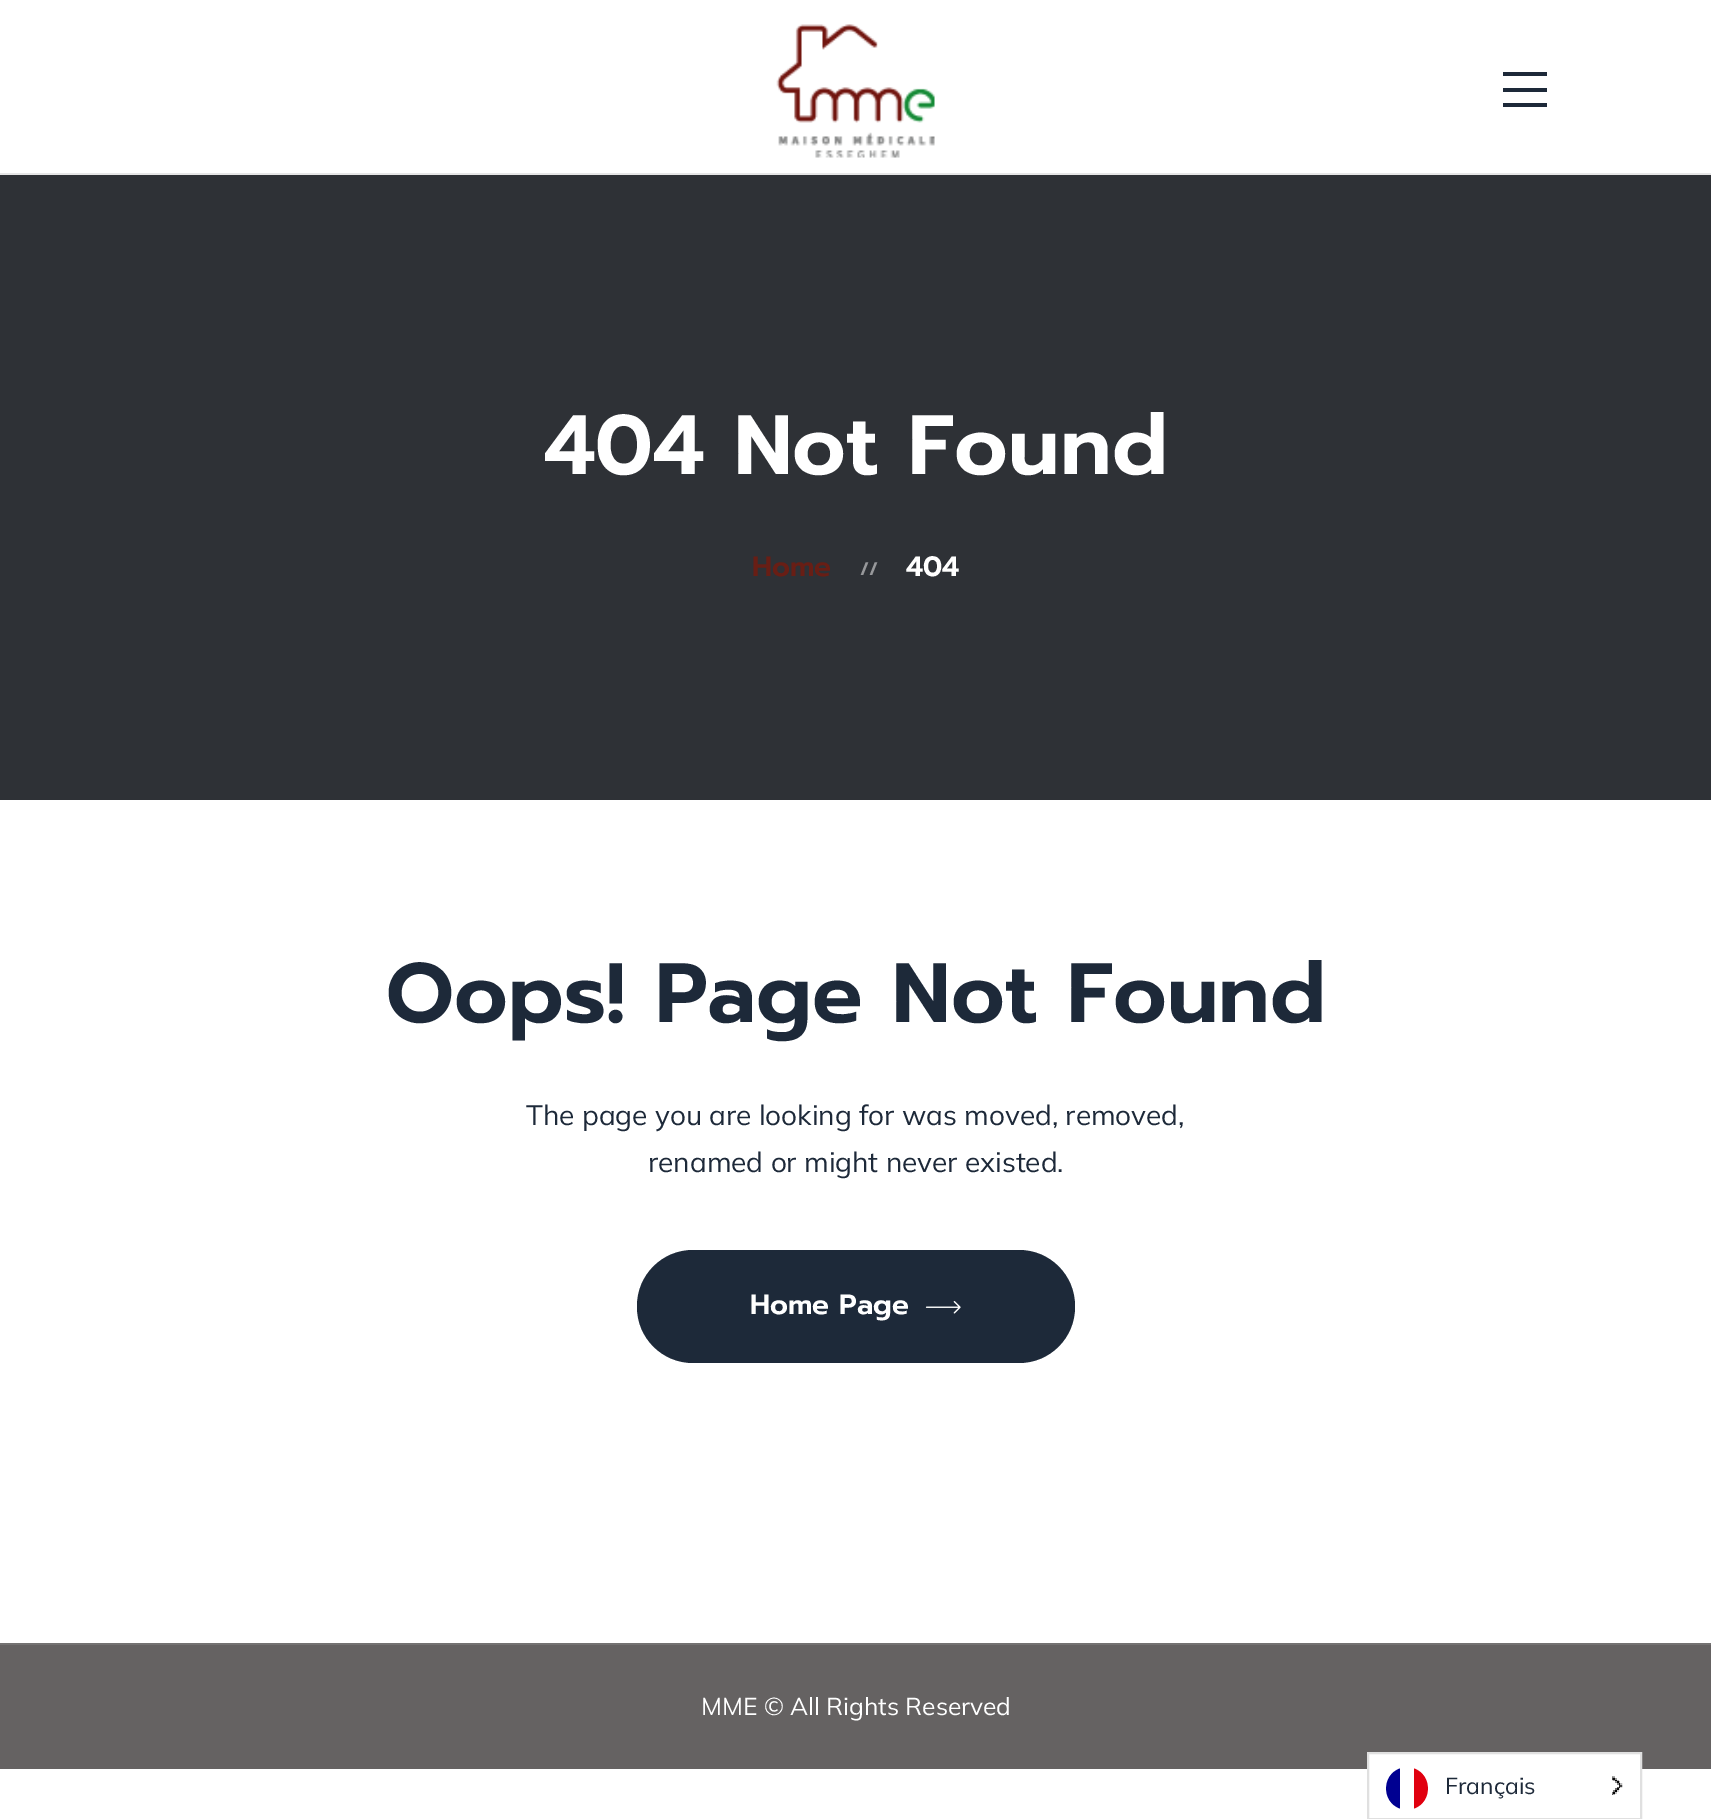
%!PS
<< /PageSize [1711 1819] >> setpagedevice
/roundrect { 5 dict begin { /r /h /w /y /x } { exch def } forall
  x r add y moveto x w add y 2 copy h add r arct x w add y h add x 1 index r arct
  x y h add x y r arct x y 2 copy exch w add exch r arct closepath end } def
/picture { 5 dict begin { /h /w /y /x /name } { exch def } forall
  gsave x y translate w h scale
  w h 8 [w 0 0 h 0 0] name (r) file false 3 colorimage grestore end } def
0 1819 translate 1 -1 scale
4 setmiterlimit
1 setgray
0 0 1711 1819 rectfill
(img1.rgb) 776 24 159 134 picture
0.114 0.161 0.224 setrgbcolor
1503 72 44 4 rectfill
1503 88 44 4 rectfill
1503 103 44 4 rectfill
0.902 setgray
0 173 1711 2 rectfill
0.18 0.192 0.212 setrgbcolor
0 175 1711 625 rectfill
/Prompt-SemiBold [84 0 0 -84 0 0] selectfont
1 setgray
544 474 moveto (404 Not Found) show
/Prompt-SemiBold [28 0 0 -28 0 0] selectfont
0.408 0.118 0.082 setrgbcolor
752 576 moveto (Home) show
/Prompt-SemiBold [18 0 0 -18 0 0] selectfont
0.592 0.596 0.608 setrgbcolor
860 575 moveto (//) show
/Prompt-SemiBold [28 0 0 -28 0 0] selectfont
1 setgray
906 576 moveto (404) show
/Prompt-SemiBold [84 0 0 -84 0 0] selectfont
0.114 0.161 0.224 setrgbcolor
386 1022 moveto (Oops! Page Not Found) show
/Mulish-Regular [28 0 0 -28 0 0] selectfont
526 1125 moveto (The page you are looking for was moved, removed,) show
648 1172 moveto (renamed or might never existed.) show
637 1250 438 113 56 roundrect fill
/Prompt-SemiBold [28 0 0 -28 0 0] selectfont
1 setgray
750 1314 moveto (Home Page) show
(img2.rgb) 925 1301 36 13 picture
0.396 0.384 0.384 setrgbcolor
0 1645 1711 124 rectfill
0.455 0.447 0.447 setrgbcolor
0 1643 1711 2 rectfill
/Mulish-Regular [24.5 0 0 -24.5 0 0] selectfont
1 setgray
701 1715 moveto (MME © All Rights Reserved) show
1369 1754 271 15 rectfill
0.878 setgray
2 setlinewidth
1368 1753 273 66 rectstroke
0 0 0.569 setrgbcolor
newpath 1400 1808.5 moveto 1381.5 1802 1381.5 1775 1400 1768.5 curveto closepath fill
0.882 0 0.059 setrgbcolor
newpath 1414 1768.5 moveto 1432.5 1775 1432.5 1802 1414 1808.5 curveto closepath fill
/Mulish-Regular [23 0 0 -23 0 0] selectfont
0.114 0.161 0.224 setrgbcolor
1445 1794 moveto (Français) show
(img3.rgb) 1612 1776 11 19 picture
showpage
